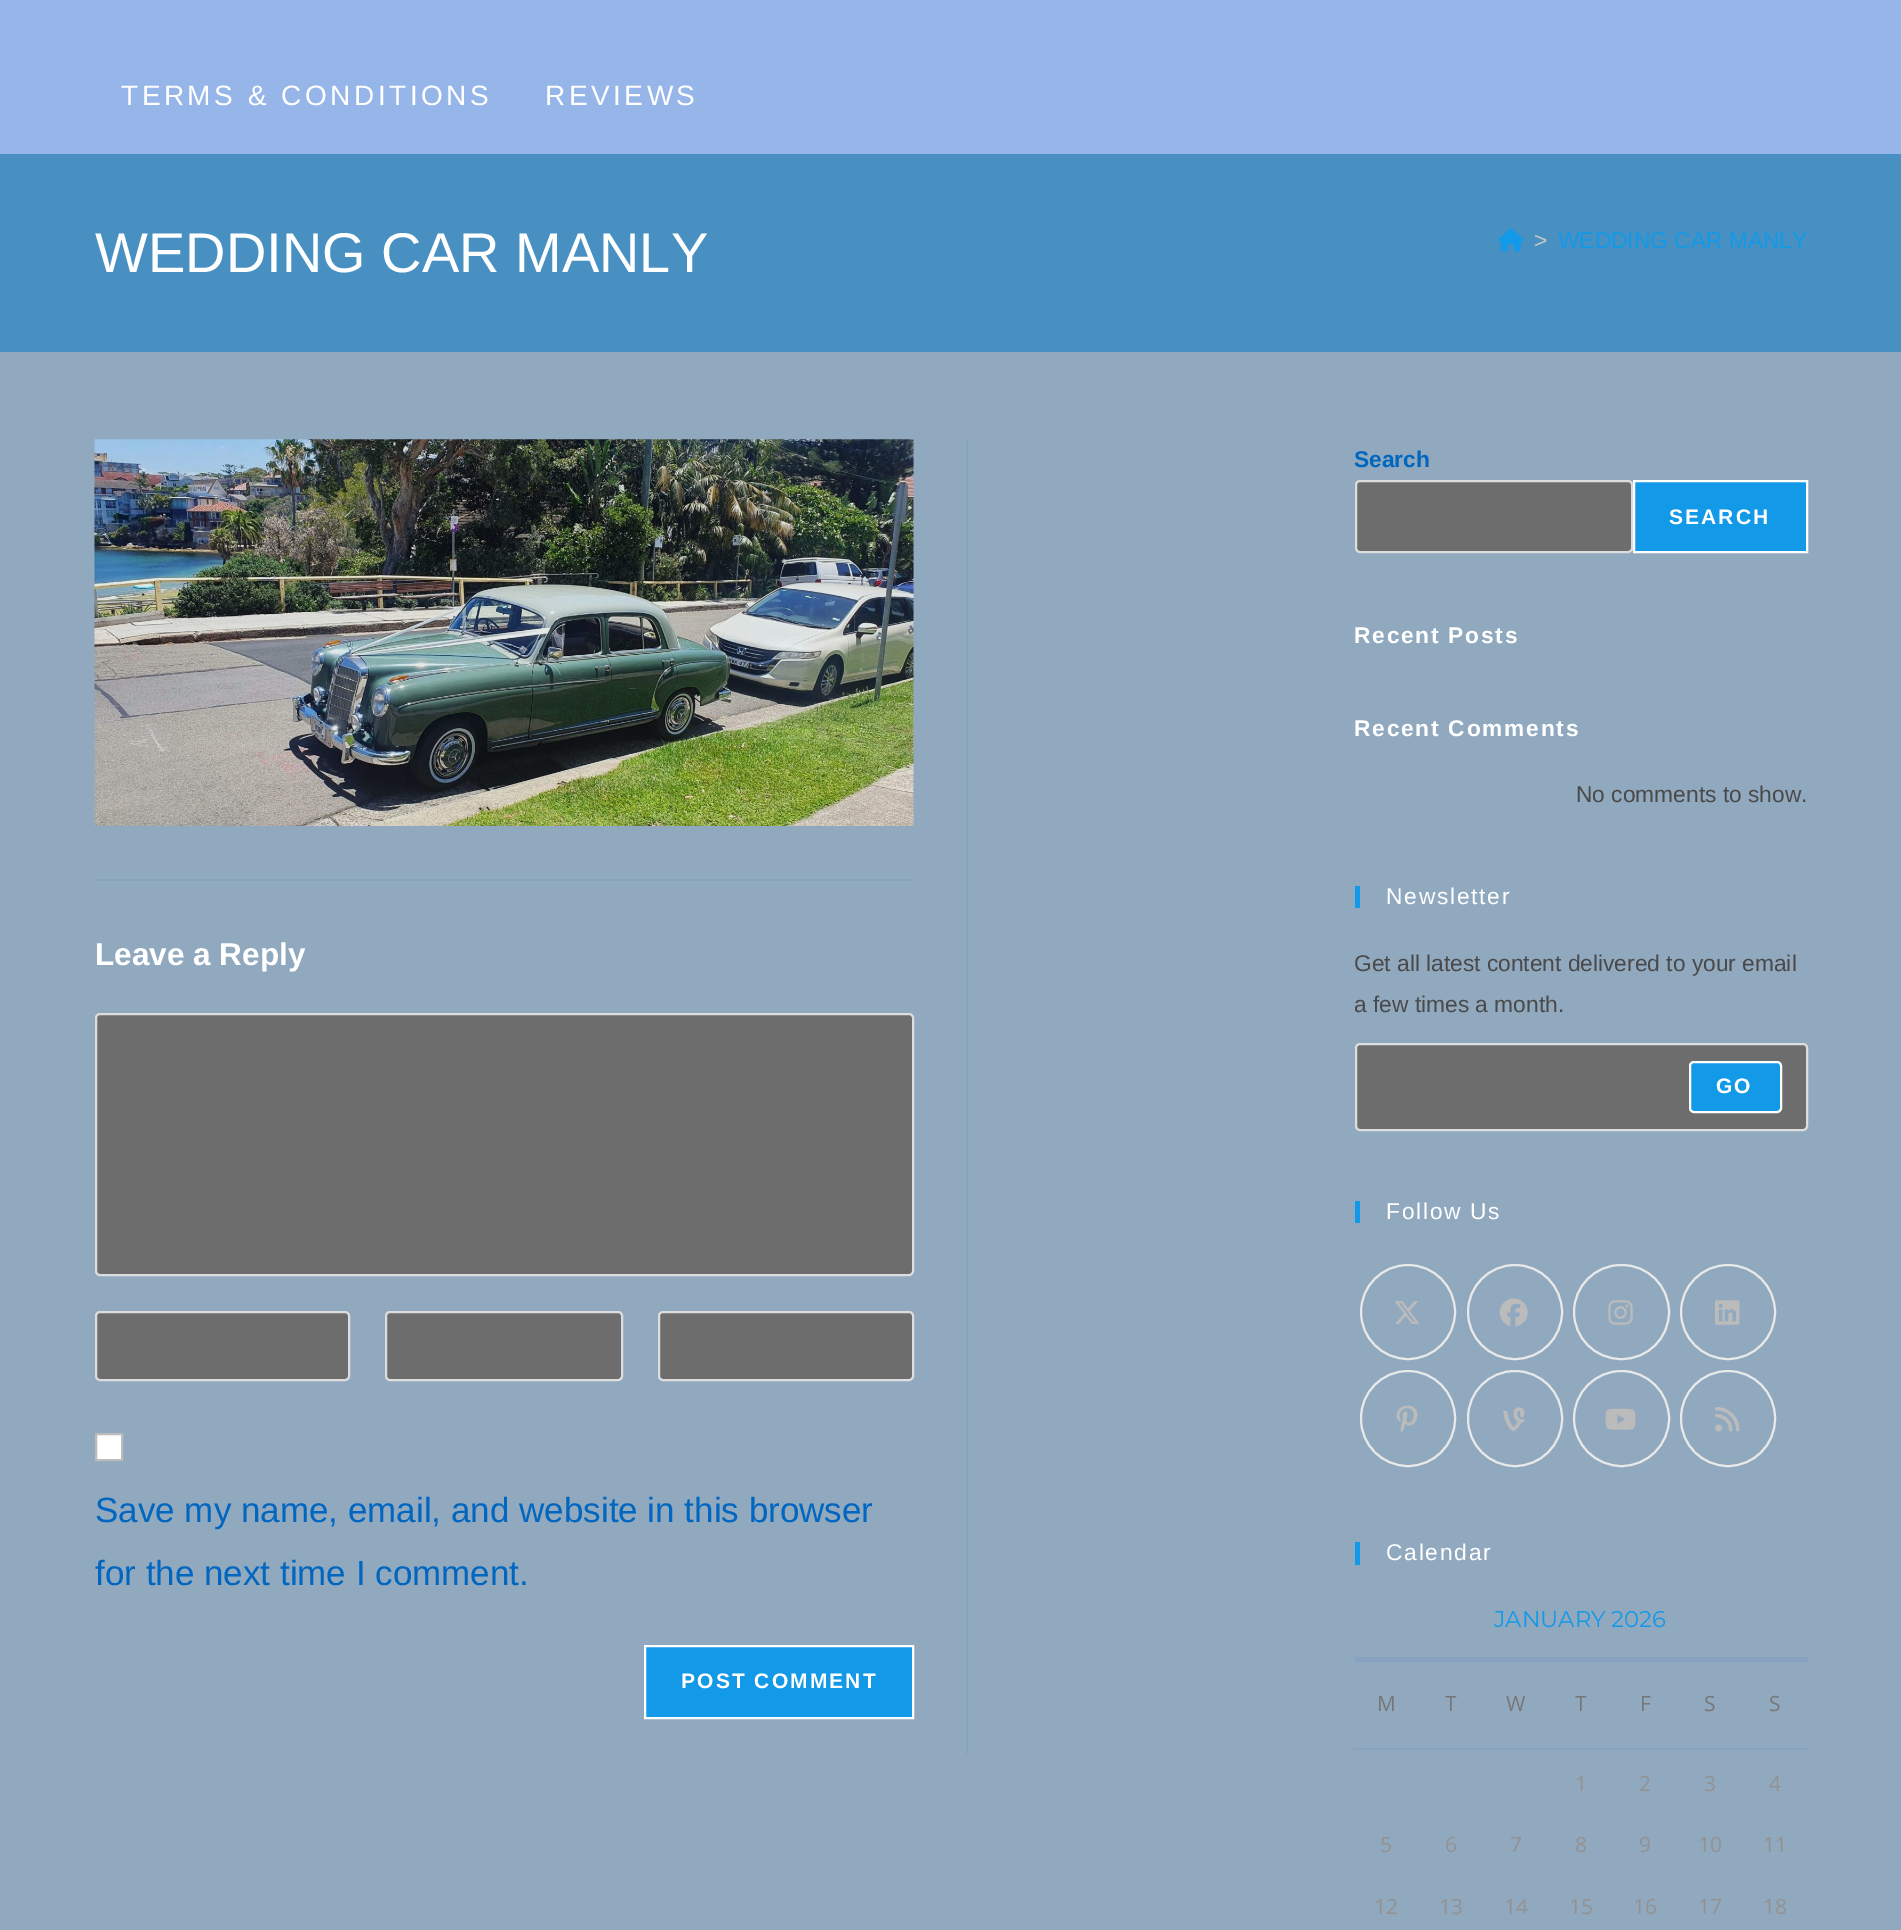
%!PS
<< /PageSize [1901 1930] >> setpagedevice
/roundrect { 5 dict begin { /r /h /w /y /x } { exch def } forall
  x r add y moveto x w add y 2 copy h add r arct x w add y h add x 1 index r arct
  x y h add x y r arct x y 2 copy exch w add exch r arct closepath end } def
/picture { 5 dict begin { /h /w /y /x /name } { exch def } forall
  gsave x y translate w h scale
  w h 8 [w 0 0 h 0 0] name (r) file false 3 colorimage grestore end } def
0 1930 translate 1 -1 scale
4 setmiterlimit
0.569 0.663 0.749 setrgbcolor
0 0 1901 1930 rectfill
0.588 0.71 0.91 setrgbcolor
0 0 1901 154 rectfill
/LiberationSans-Regular [28 0 0 -28 0 0] selectfont
1 setgray
121 105 moveto 3.5 0 (TERMS & CONDITIONS) ashow
545 105 moveto 3.5 0 (REVIEWS) ashow
0.278 0.565 0.757 setrgbcolor
0 154 1901 198 rectfill
/LiberationSans-Regular [56 0 0 -56 0 0] selectfont
1 setgray
95 272 moveto (WEDDING CAR MANLY) show
(img1.rgb) 1498 228 26 24 picture
/LiberationSans-Regular [22.75 0 0 -22.75 0 0] selectfont
0.776 setgray
1534 248 moveto (>) show
0.071 0.6 0.91 setrgbcolor
1558 248 moveto (WEDDING CAR MANLY) show
0.529 0.639 0.749 setrgbcolor
966 439 2 1315 rectfill
(img2.rgb) 94 439 820 387 picture
95 879 819 2 rectfill
/LiberationSans-Bold [31.5 0 0 -31.5 0 0] selectfont
1 setgray
95 965 moveto (Leave a Reply) show
0.427 setgray
96 1014 817 261 4 roundrect gsave fill grestore
0.867 setgray
2 setlinewidth
stroke
0.427 setgray
96 1312 253 68 4 roundrect gsave fill grestore
0.867 setgray
stroke
0.427 setgray
386 1312 236 68 4 roundrect gsave fill grestore
0.867 setgray
stroke
0.427 setgray
659 1312 254 68 4 roundrect gsave fill grestore
0.867 setgray
stroke
1 setgray
newpath 96 1434 moveto 122 1434 lineto 122 1460 lineto 96 1460 lineto closepath gsave fill grestore
0.733 setgray
stroke
/LiberationSans-Regular [35 0 0 -35 0 0] selectfont
0 0.4 0.749 setrgbcolor
95 1522 moveto (Save my name, email, and website in this browser) show
95 1585 moveto (for the next time I comment.) show
0.071 0.6 0.91 setrgbcolor
newpath 645 1646 moveto 913 1646 lineto 913 1718 lineto 645 1718 lineto closepath gsave fill grestore
1 setgray
stroke
/LiberationSans-Bold [21 0 0 -21 0 0] selectfont
681 1688 moveto 2.1 0 (POST COMMENT) ashow
/LiberationSans-Bold [22.75 0 0 -22.75 0 0] selectfont
0 0.4 0.749 setrgbcolor
1354 467 moveto (Search) show
0.427 setgray
1356 481 276 71 4 roundrect gsave fill grestore
0.867 setgray
stroke
0.071 0.6 0.91 setrgbcolor
newpath 1634 481 moveto 1807 481 lineto 1807 552 lineto 1634 552 lineto closepath gsave fill grestore
1 setgray
stroke
/LiberationSans-Bold [21 0 0 -21 0 0] selectfont
1669 524 moveto 2.1 0 (SEARCH) ashow
/LiberationSans-Bold [22.75 0 0 -22.75 0 0] selectfont
1354 643 moveto 1.75 0 (Recent Posts) ashow
1354 736 moveto 1.75 0 (Recent Comments) ashow
/LiberationSans-Regular [22.75 0 0 -22.75 0 0] selectfont
0.29 setgray
1576 802 moveto (No comments to show.) show
0.071 0.6 0.91 setrgbcolor
1355 886 5 22 rectfill
1 setgray
1386 904 moveto 1.75 0 (Newsletter) ashow
0.29 setgray
1354 971 moveto (Get all latest content delivered to your email) show
1354 1012 moveto (a few times a month.) show
0.427 setgray
1356 1044 451 86 4 roundrect gsave fill grestore
0.867 setgray
stroke
0.071 0.6 0.91 setrgbcolor
1690 1062 91 50 4 roundrect gsave fill grestore
1 setgray
stroke
/LiberationSans-Bold [21 0 0 -21 0 0] selectfont
1716 1093 moveto 2.1 0 (GO) ashow
0.071 0.6 0.91 setrgbcolor
1355 1201 5 22 rectfill
/LiberationSans-Regular [22.75 0 0 -22.75 0 0] selectfont
1 setgray
1386 1219 moveto 1.75 0 (Follow Us) ashow
0.914 setgray
newpath 1408 1312 47 0 360 arc closepath stroke
(img3.rgb) 1394 1301 26 23 picture
newpath 1515 1312 47 0 360 arc closepath stroke
(img4.rgb) 1499 1298 29 29 picture
1574 1265 95 94 47 roundrect stroke
(img5.rgb) 1608 1300 25 25 picture
newpath 1728 1312 47 0 360 arc closepath stroke
(img6.rgb) 1715 1300 25 25 picture
1361 1371 94 95 47 roundrect stroke
(img7.rgb) 1396 1405 22 28 picture
1468 1371 94 95 47 roundrect stroke
(img8.rgb) 1503 1407 22 25 picture
newpath 1621.5 1418.5 47.5 0 360 arc closepath stroke
(img9.rgb) 1605 1408 31 22 picture
1681 1371 94 95 47 roundrect stroke
(img10.rgb) 1715 1407 25 25 picture
0.071 0.6 0.91 setrgbcolor
1355 1542 5 23 rectfill
1 setgray
1386 1560 moveto 1.75 0 (Calendar) ashow
0.529 0.639 0.749 setrgbcolor
1355 1657 453 5 rectfill
/Montserrat-Regular [22.75 0 0 -22.75 0 0] selectfont
0.071 0.6 0.91 setrgbcolor
1494 1627 moveto (JANUARY 2026) show
/OpenSans-Regular [21 0 0 -21 0 0] selectfont
0.467 setgray
1377 1711 moveto (M) show
1445 1711 moveto (T) show
1506 1711 moveto (W) show
1575 1711 moveto (T) show
1640 1711 moveto (F) show
1704 1711 moveto (S) show
0.529 0.639 0.749 setrgbcolor
1353 1748 455 2 rectfill
0.467 setgray
1769 1711 moveto (S) show
0.573 setgray
1575 1791 moveto (1) show
1639 1791 moveto (2) show
1704 1791 moveto (3) show
1769 1791 moveto (4) show
1380 1852 moveto (5) show
1445 1852 moveto (6) show
1510 1852 moveto (7) show
1575 1852 moveto (8) show
1639 1852 moveto (9) show
1698 1852 moveto (10) show
1763 1852 moveto (11) show
1374 1914 moveto (12) show
1439 1914 moveto (13) show
1504 1914 moveto (14) show
1569 1914 moveto (15) show
1633 1914 moveto (16) show
1698 1914 moveto (17) show
1763 1914 moveto (18) show
showpage
